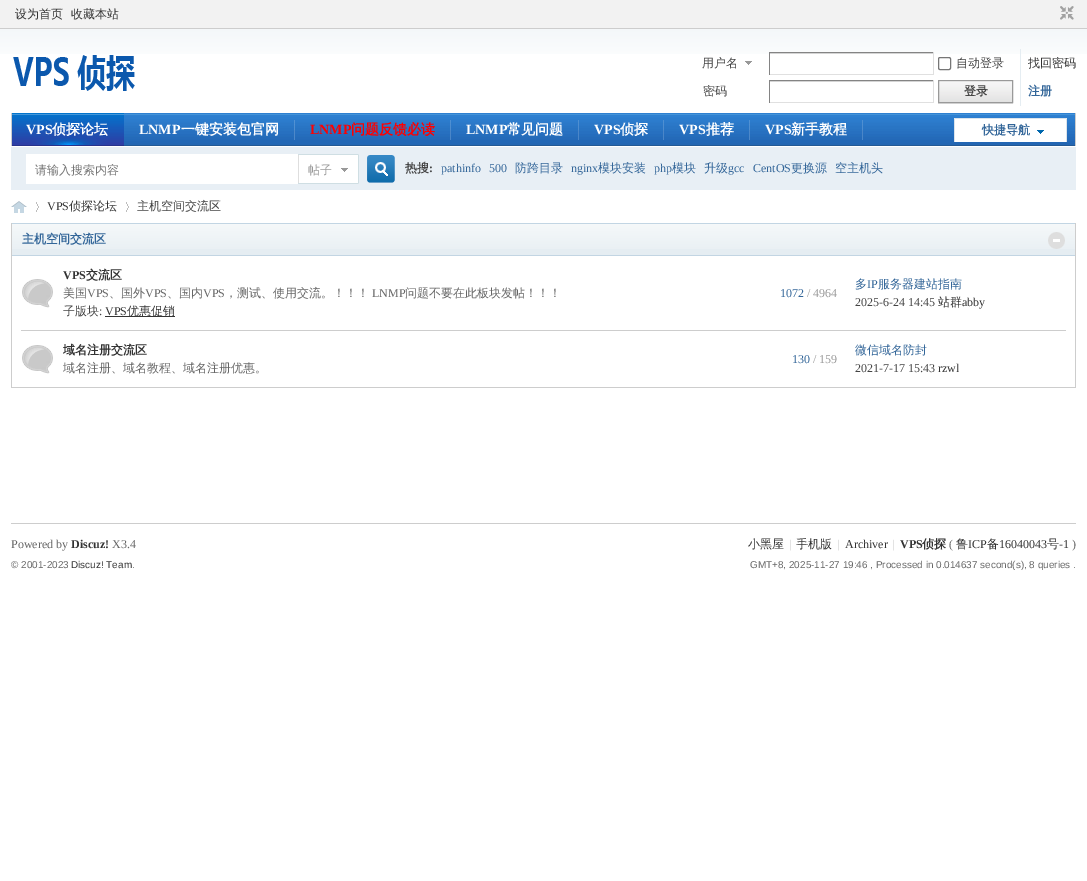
%!PS
<< /PageSize [1087 881] >> setpagedevice
/roundrect { 5 dict begin { /r /h /w /y /x } { exch def } forall
  x r add y moveto x w add y 2 copy h add r arct x w add y h add x 1 index r arct
  x y h add x y r arct x y 2 copy exch w add exch r arct closepath end } def
/picture { 5 dict begin { /h /w /y /x /name } { exch def } forall
  gsave x y translate w h scale
  w h 8 [w 0 0 h 0 0] name (r) file false 3 colorimage grestore end } def
0 881 translate 1 -1 scale
4 setmiterlimit
1 setgray
0 0 1087 881 rectfill
(img1.rgb) 0 29 1087 25 picture
0.949 setgray
0 0 1087 28 rectfill
0.804 setgray
0 28 1087 1 rectfill
/WenQuanYiZenHei-Medium [12 0 0 -12 0 0] selectfont
0.2 setgray
15 18 moveto (设为首页) show
71 18 moveto (收藏本站) show
(img2.rgb) 1060 6 14 14 picture
(img3.rgb) 13 55 122 36 picture
(img4.rgb) 745 61 7 4 picture
0.267 setgray
702 67 moveto (用户名) show
0.831 setgray
769 53 165 1 rectfill
0.518 setgray
769 52 165 1 rectfill
0.878 setgray
933 52 1 23 rectfill
769 74 165 1 rectfill
0.518 setgray
769 52 1 23 rectfill
0.463 setgray
938.5 57.5 12 12 1.5 roundrect stroke
0.267 setgray
956 67 moveto (自动登录) show
0.2 setgray
1028 67 moveto (找回密码) show
0.267 setgray
703 95 moveto (密码) show
0.831 setgray
769 81 165 1 rectfill
0.518 setgray
769 80 165 1 rectfill
0.878 setgray
933 80 1 23 rectfill
769 102 165 1 rectfill
0.518 setgray
769 80 1 23 rectfill
0.898 0.929 0.949 setrgbcolor
1020 49 1 57 rectfill
0.898 setgray
938 103 75 1 rectfill
(img5.rgb) 939 81 73 21 picture
0.6 setgray
938.5 80.5 74 22 rectstroke
/WenQuanYiZenHei-Bold [12 0 0 -12 0 0] selectfont
0.267 setgray
964 95 moveto (登录) show
0.2 0.4 0.6 setrgbcolor
1028 95 moveto (注册) show
(img6.rgb) 124 113 951 33 picture
0.804 setgray
1075 113 1 33 rectfill
11 113 1 33 rectfill
(img7.rgb) 12 113 112 33 picture
/LiberationSerif-Bold [14 0 0 -14 0 0] selectfont
1 setgray
26 134 moveto (VPS) show
/WenQuanYiZenHei-Bold [14 0 0 -14 0 0] selectfont
52 134 moveto (侦探论坛) show
(img8.rgb) 294 120 1 20 picture
/LiberationSerif-Bold [14 0 0 -14 0 0] selectfont
139 134 moveto (LNMP) show
/WenQuanYiZenHei-Bold [14 0 0 -14 0 0] selectfont
181 134 moveto (一键安装包官网) show
(img9.rgb) 450 120 1 20 picture
/LiberationSerif-Bold [14 0 0 -14 0 0] selectfont
1 0 0 setrgbcolor
310 134 moveto (LNMP) show
/WenQuanYiZenHei-Bold [14 0 0 -14 0 0] selectfont
351 134 moveto (问题反馈必读) show
(img9.rgb) 578 120 1 20 picture
/LiberationSerif-Bold [14 0 0 -14 0 0] selectfont
1 setgray
466 134 moveto (LNMP) show
/WenQuanYiZenHei-Bold [14 0 0 -14 0 0] selectfont
507 134 moveto (常见问题) show
(img10.rgb) 663 120 1 20 picture
/LiberationSerif-Bold [14 0 0 -14 0 0] selectfont
594 134 moveto (VPS) show
/WenQuanYiZenHei-Bold [14 0 0 -14 0 0] selectfont
620 134 moveto (侦探) show
(img8.rgb) 749 120 1 20 picture
/LiberationSerif-Bold [14 0 0 -14 0 0] selectfont
679 134 moveto (VPS) show
/WenQuanYiZenHei-Bold [14 0 0 -14 0 0] selectfont
706 134 moveto (推荐) show
(img10.rgb) 862 120 1 20 picture
/LiberationSerif-Bold [14 0 0 -14 0 0] selectfont
765 134 moveto (VPS) show
/WenQuanYiZenHei-Bold [14 0 0 -14 0 0] selectfont
791 134 moveto (新手教程) show
(img11.rgb) 954 118 113 24 picture
/WenQuanYiZenHei-Bold [12 0 0 -12 0 0] selectfont
0.2 0.4 0.6 setrgbcolor
982 134 moveto (快捷导航) show
0.91 0.937 0.961 setrgbcolor
11 147 1065 43 rectfill
1 setgray
26 154 272 30 rectfill
(img12.rgb) 367 155 28 28 picture
0.267 setgray
405 172 moveto (热搜) show
/LiberationSerif-Bold [12 0 0 -12 0 0] selectfont
429 172 moveto (:) show
/LiberationSerif-Regular [12 0 0 -12 0 0] selectfont
0.2 0.4 0.6 setrgbcolor
441 172 moveto (pathinfo) show
489 172 moveto (500) show
/WenQuanYiZenHei-Medium [12 0 0 -12 0 0] selectfont
515 172 moveto (防跨目录) show
/LiberationSerif-Regular [12 0 0 -12 0 0] selectfont
571 172 moveto (nginx) show
/WenQuanYiZenHei-Medium [12 0 0 -12 0 0] selectfont
598 172 moveto (模块安装) show
/LiberationSerif-Regular [12 0 0 -12 0 0] selectfont
654 172 moveto (php) show
/WenQuanYiZenHei-Medium [12 0 0 -12 0 0] selectfont
672 172 moveto (模块) show
704 172 moveto (升级) show
/LiberationSerif-Regular [12 0 0 -12 0 0] selectfont
728 172 moveto (gcc) show
753 172 moveto (CentOS) show
/WenQuanYiZenHei-Medium [12 0 0 -12 0 0] selectfont
791 172 moveto (更换源) show
835 172 moveto (空主机头) show
0.459 setgray
35 174 moveto (请输入搜索内容) show
(img13.rgb) 298 154 61 30 picture
0.6 setgray
308 174 moveto (帖子) show
(img14.rgb) 11 201 16 12 picture
(img15.rgb) 36 202 3 10 picture
/LiberationSerif-Regular [12 0 0 -12 0 0] selectfont
0.2 setgray
47 210 moveto (VPS) show
/WenQuanYiZenHei-Medium [12 0 0 -12 0 0] selectfont
69 210 moveto (侦探论坛) show
(img15.rgb) 126 202 3 10 picture
0.267 setgray
137 210 moveto (主机空间交流区) show
0.804 setgray
1075 223 1 165 rectfill
11 387 1065 1 rectfill
11 223 1 165 rectfill
0.898 0.929 0.949 setrgbcolor
12 249 1063 6 rectfill
(img16.rgb) 12 224 1063 25 picture
0.761 0.835 0.89 setrgbcolor
12 223 1063 1 rectfill
12 255 1063 1 rectfill
/WenQuanYiZenHei-Bold [12 0 0 -12 0 0] selectfont
0.2 0.4 0.6 setrgbcolor
22 243 moveto (主机空间交流区) show
(img17.rgb) 1048 232 17 17 picture
(img18.rgb) 22 279 31 29 picture
/LiberationSerif-Bold [12 0 0 -12 0 0] selectfont
0.2 setgray
63 279 moveto (VPS) show
/WenQuanYiZenHei-Bold [12 0 0 -12 0 0] selectfont
86 279 moveto (交流区) show
/WenQuanYiZenHei-Medium [12 0 0 -12 0 0] selectfont
0.4 setgray
63 297 moveto (美国) show
/LiberationSerif-Regular [12 0 0 -12 0 0] selectfont
87 297 moveto (VPS) show
/WenQuanYiZenHei-Medium [12 0 0 -12 0 0] selectfont
109 297 moveto (、国外) show
/LiberationSerif-Regular [12 0 0 -12 0 0] selectfont
145 297 moveto (VPS) show
/WenQuanYiZenHei-Medium [12 0 0 -12 0 0] selectfont
167 297 moveto (、国内) show
/LiberationSerif-Regular [12 0 0 -12 0 0] selectfont
203 297 moveto (VPS) show
/WenQuanYiZenHei-Medium [12 0 0 -12 0 0] selectfont
225 297 moveto (，测试、使用交流。！！！) show
/LiberationSerif-Regular [12 0 0 -12 0 0] selectfont
372 297 moveto (LNMP) show
/WenQuanYiZenHei-Medium [12 0 0 -12 0 0] selectfont
405 297 moveto (问题不要在此板块发帖！！！) show
0.267 setgray
63 315 moveto (子版块) show
/LiberationSerif-Regular [12 0 0 -12 0 0] selectfont
99 315 moveto (:) show
0.2 setgray
105 315 moveto (VPS) show
105 316 70 1 rectfill
/WenQuanYiZenHei-Medium [12 0 0 -12 0 0] selectfont
127 315 moveto (优惠促销) show
/LiberationSerif-Regular [12 0 0 -12 0 0] selectfont
0.2 0.4 0.6 setrgbcolor
780 297 moveto (1072) show
0.6 setgray
807 297 moveto (/ 4964) show
/WenQuanYiZenHei-Medium [12 0 0 -12 0 0] selectfont
0.2 0.4 0.6 setrgbcolor
855 288 moveto (多) show
/LiberationSerif-Regular [12 0 0 -12 0 0] selectfont
867 288 moveto (IP) show
/WenQuanYiZenHei-Medium [12 0 0 -12 0 0] selectfont
878 288 moveto (服务器建站指南) show
/LiberationSerif-Regular [12 0 0 -12 0 0] selectfont
0.267 setgray
855 306 moveto (2025-6-24 14:45) show
/WenQuanYiZenHei-Medium [12 0 0 -12 0 0] selectfont
0.2 setgray
938 306 moveto (站群) show
/LiberationSerif-Regular [12 0 0 -12 0 0] selectfont
962 306 moveto (abby) show
(img18.rgb) 22 345 31 29 picture
/WenQuanYiZenHei-Bold [12 0 0 -12 0 0] selectfont
63 354 moveto (域名注册交流区) show
/WenQuanYiZenHei-Medium [12 0 0 -12 0 0] selectfont
0.4 setgray
63 372 moveto (域名注册、域名教程、域名注册优惠。) show
/LiberationSerif-Regular [12 0 0 -12 0 0] selectfont
0.2 0.4 0.6 setrgbcolor
792 363 moveto (130) show
0.6 setgray
813 363 moveto (/ 159) show
0.804 setgray
21 330 1045 1 rectfill
/WenQuanYiZenHei-Medium [12 0 0 -12 0 0] selectfont
0.2 0.4 0.6 setrgbcolor
855 354 moveto (微信域名防封) show
/LiberationSerif-Regular [12 0 0 -12 0 0] selectfont
0.267 setgray
855 372 moveto (2021-7-17 15:43) show
0.2 setgray
938 372 moveto (rzwl) show
0.804 setgray
11 523 1065 1 rectfill
0.4 setgray
11 548 moveto (Powered by) show
/LiberationSerif-Bold [12 0 0 -12 0 0] selectfont
0.2 setgray
71 548 moveto (Discuz!) show
/LiberationSerif-Regular [12 0 0 -12 0 0] selectfont
0.4 setgray
112 548 moveto (X3.4) show
/LiberationSans-Regular [9.95 0 0 -9.95 0 0] selectfont
11 568 moveto (© 2001-2023) show
0.2 setgray
71 568 moveto (Discuz! Team) show
0.4 setgray
132 568 moveto (.) show
/WenQuanYiZenHei-Medium [12 0 0 -12 0 0] selectfont
0.2 setgray
748 548 moveto (小黑屋) show
/LiberationSerif-Regular [12 0 0 -12 0 0] selectfont
0.8 setgray
789 548 moveto (|) show
/WenQuanYiZenHei-Medium [12 0 0 -12 0 0] selectfont
0.2 setgray
796 548 moveto (手机版) show
/LiberationSerif-Regular [12 0 0 -12 0 0] selectfont
0.8 setgray
837 548 moveto (|) show
0.2 setgray
845 548 moveto (Archiver) show
0.8 setgray
892 548 moveto (|) show
/LiberationSerif-Bold [12 0 0 -12 0 0] selectfont
0.2 setgray
900 548 moveto (VPS) show
/WenQuanYiZenHei-Bold [12 0 0 -12 0 0] selectfont
922 548 moveto (侦探) show
/LiberationSerif-Regular [12 0 0 -12 0 0] selectfont
0.4 setgray
949 548 moveto (\() show
/WenQuanYiZenHei-Medium [12 0 0 -12 0 0] selectfont
0.2 setgray
956 548 moveto (鲁) show
/LiberationSerif-Regular [12 0 0 -12 0 0] selectfont
968 548 moveto (ICP) show
/WenQuanYiZenHei-Medium [12 0 0 -12 0 0] selectfont
987 548 moveto (备) show
/LiberationSerif-Regular [12 0 0 -12 0 0] selectfont
999 548 moveto (16040043) show
/WenQuanYiZenHei-Medium [12 0 0 -12 0 0] selectfont
1047 548 moveto (号) show
/LiberationSerif-Regular [12 0 0 -12 0 0] selectfont
1059 548 moveto (-1) show
0.4 setgray
1072 548 moveto (\)) show
/LiberationSans-Regular [9.95 0 0 -9.95 0 0] selectfont
750 568 moveto (GMT+8, 2025-11-27 19:46 , Processed in 0.014637 second\(s\), 8 queries .) show
showpage
